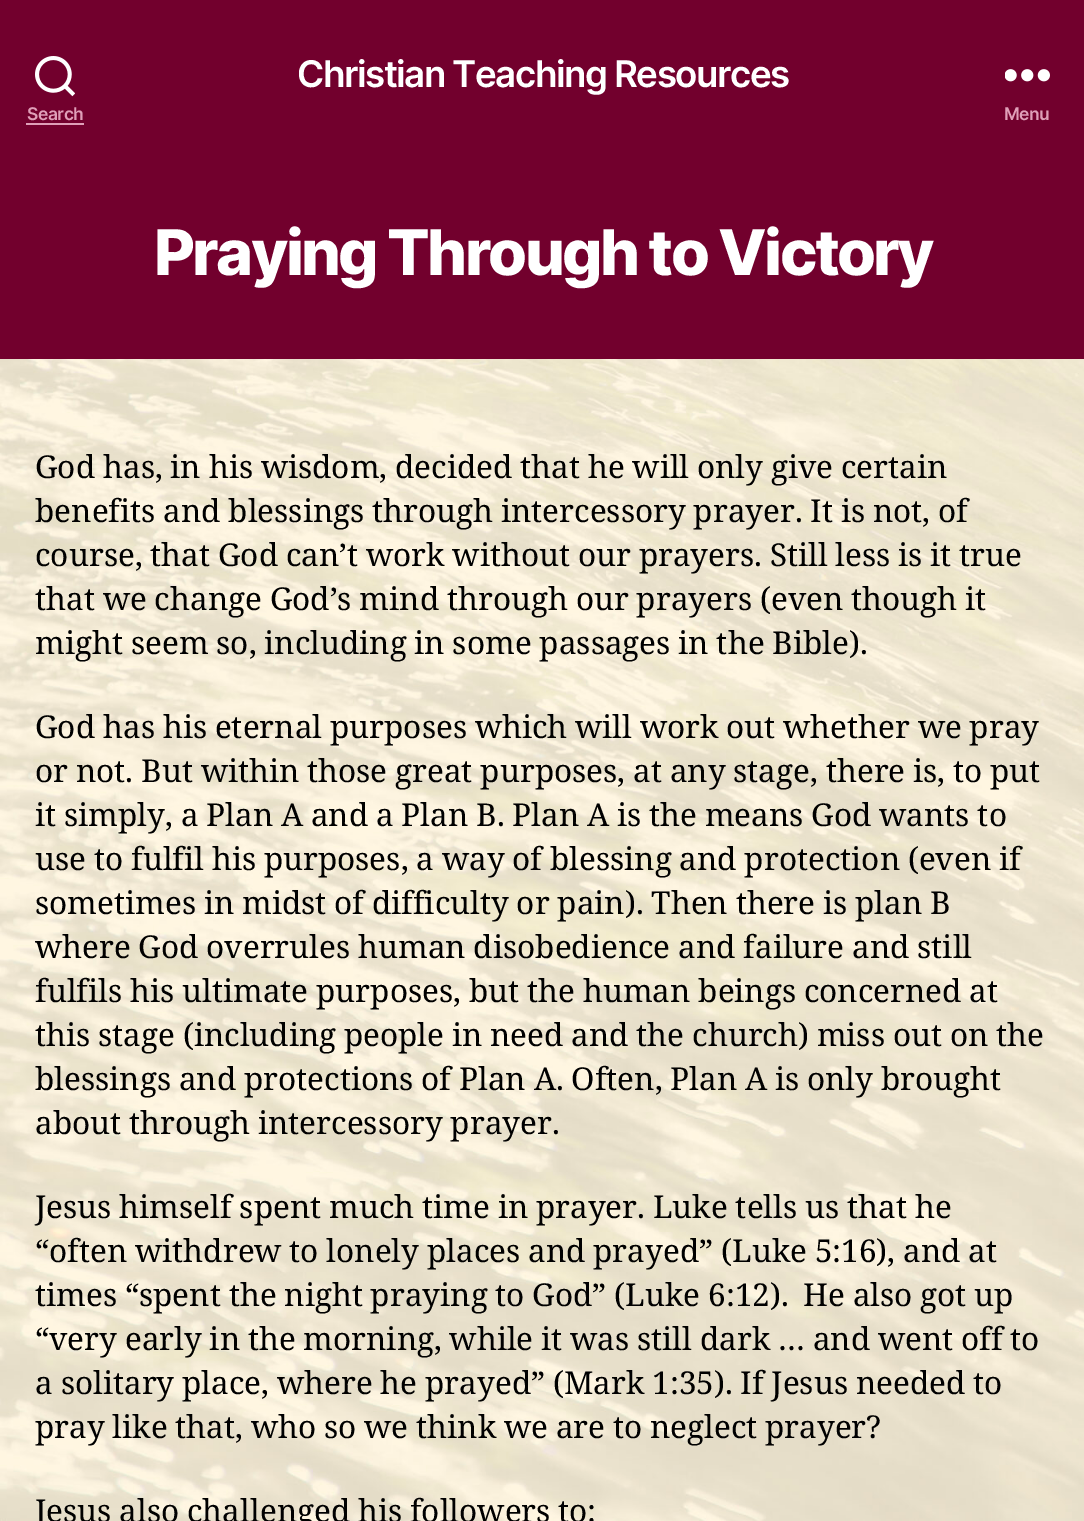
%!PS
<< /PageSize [1084 1521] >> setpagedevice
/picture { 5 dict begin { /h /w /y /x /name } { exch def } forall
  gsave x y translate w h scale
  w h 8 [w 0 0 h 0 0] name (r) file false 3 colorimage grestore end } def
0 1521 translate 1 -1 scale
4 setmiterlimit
1 setgray
0 0 1084 1521 rectfill
(img1.rgb) 0 359 1084 1162 picture
0.447 0 0.176 setrgbcolor
0 0 1084 359 rectfill
/Inter-SemiBold [36.75 0 0 -36.75 0 0] selectfont
1 setgray
297 87 moveto -1.5 0 (Christian Teaching Resources) ashow
(img2.rgb) 35 56 40 41 picture
/Inter-SemiBold [17.5 0 0 -17.5 0 0] selectfont
0.875 0.624 0.722 setrgbcolor
27 120 moveto -0.5 0 (Search) ashow
26 123 58 2 rectfill
(img3.rgb) 1005 69 45 13 picture
1004 120 moveto -0.5 0 (Menu) ashow
/Inter-ExtraBold [63 0 0 -63 0 0] selectfont
1 setgray
154 275 moveto -2.6 0 (Praying Through to Victory) ashow
/NotoSerif-Regular [31.5 0 0 -31.5 0 0] selectfont
0 setgray
35 478 moveto -0.4 0 32 (God has, in his wisdom, decided that he will only give certain) widthshow
35 522 moveto -0.4 0 32 (benefits and blessings through intercessory prayer. It is not, of) widthshow
35 566 moveto -0.4 0 32 (course, that God can’t work without our prayers. Still less is it true) widthshow
35 610 moveto -0.4 0 32 (that we change God’s mind through our prayers \(even though it) widthshow
35 654 moveto -0.4 0 32 (might seem so, including in some passages in the Bible\).) widthshow
35 738 moveto -0.4 0 32 (God has his eternal purposes which will work out whether we pray) widthshow
35 782 moveto -0.4 0 32 (or not. But within those great purposes, at any stage, there is, to put) widthshow
35 826 moveto -0.4 0 32 (it simply, a Plan A and a Plan B. Plan A is the means God wants to) widthshow
35 870 moveto -0.4 0 32 (use to fulfil his purposes, a way of blessing and protection \(even if) widthshow
35 914 moveto -0.4 0 32 (sometimes in midst of difficulty or pain\). Then there is plan B) widthshow
35 958 moveto -0.4 0 32 (where God overrules human disobedience and failure and still) widthshow
35 1002 moveto -0.4 0 32 (fulfils his ultimate purposes, but the human beings concerned at) widthshow
35 1046 moveto -0.4 0 32 (this stage \(including people in need and the church\) miss out on the) widthshow
35 1090 moveto -0.4 0 32 (blessings and protections of Plan A. Often, Plan A is only brought) widthshow
35 1134 moveto -0.4 0 32 (about through intercessory prayer.) widthshow
35 1218 moveto -0.4 0 32 (Jesus himself spent much time in prayer. Luke tells us that he) widthshow
35 1262 moveto -0.4 0 32 (“often withdrew to lonely places and prayed” \(Luke 5:16\), and at) widthshow
35 1306 moveto -0.4 0 32 (times “spent the night praying to God” \(Luke 6:12\).) widthshow
803 1306 moveto -0.4 0 32 (He also got up) widthshow
35 1350 moveto -0.4 0 32 (“very early in the morning, while it was still dark … and went off to) widthshow
35 1394 moveto -0.4 0 32 (a solitary place, where he prayed” \(Mark 1:35\). If Jesus needed to) widthshow
35 1438 moveto -0.4 0 32 (pray like that, who so we think we are to neglect prayer?) widthshow
35 1522 moveto -0.4 0 32 (Jesus also challenged his followers to:) widthshow
showpage
